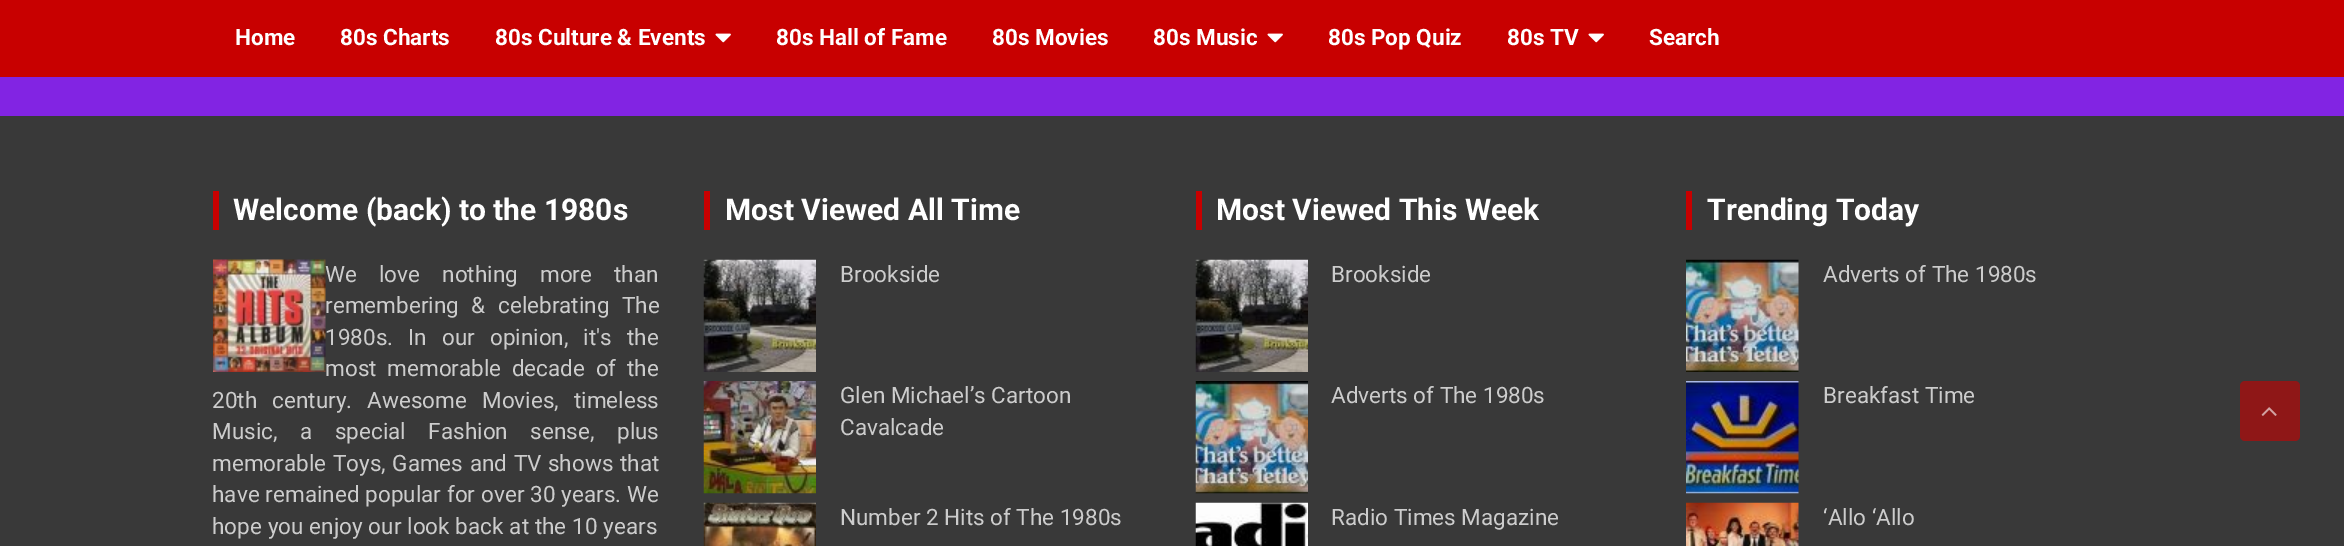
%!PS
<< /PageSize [2344 546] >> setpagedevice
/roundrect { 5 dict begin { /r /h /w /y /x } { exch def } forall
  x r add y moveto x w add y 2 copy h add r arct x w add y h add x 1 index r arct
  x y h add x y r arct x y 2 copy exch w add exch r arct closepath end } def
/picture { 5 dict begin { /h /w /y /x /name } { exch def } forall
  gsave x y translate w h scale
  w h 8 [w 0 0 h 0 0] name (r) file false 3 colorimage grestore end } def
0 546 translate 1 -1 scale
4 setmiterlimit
0.51 0.141 0.89 setrgbcolor
0 0 2344 546 rectfill
0.784 0 0 setrgbcolor
0 0 2344 77 rectfill
/Roboto-Bold [22.5 0 0 -22.5 0 0] selectfont
1 setgray
235 45 moveto (Home) show
340 45 moveto (80s Charts) show
495 45 moveto (80s Culture & Events) show
(img1.rgb) 715 33 16 10 picture
776 45 moveto (80s Hall of Fame) show
992 45 moveto (80s Movies) show
1153 45 moveto (80s Music) show
(img1.rgb) 1267 33 16 10 picture
1328 45 moveto (80s Pop Quiz) show
1507 45 moveto (80s TV) show
(img1.rgb) 1588 33 16 10 picture
1649 45 moveto (Search) show
0.224 setgray
0 116 2344 430 rectfill
0.784 0 0 setrgbcolor
213 191 6 39 rectfill
/Roboto-Bold [30 0 0 -30 0 0] selectfont
1 setgray
233 220 moveto (Welcome \(back\) to the 1980s) show
(img2.rgb) 213 259 113 113 picture
/Roboto-Regular [22.5 0 0 -22.5 0 0] selectfont
0.8 setgray
325 282 moveto 16.5 0 32 (We love nothing more than) widthshow
325 313 moveto 7 0 32 (remembering & celebrating The) widthshow
325 345 moveto 9.5 0 32 (1980s. In our opinion, it's the) widthshow
325 376 moveto 5 0 32 (most memorable decade of the) widthshow
212 408 moveto 9.5 0 32 (20th century. Awesome Movies, timeless) widthshow
212 439 moveto 17 0 32 (Music, a special Fashion sense, plus) widthshow
212 471 moveto 1 0 32 (memorable Toys, Games and TV shows that) widthshow
212 502 moveto 0.25 0 32 (have remained popular for over 30 years. We) widthshow
212 534 moveto 0.25 0 32 (hope you enjoy our look back at the 10 years) widthshow
0.784 0 0 setrgbcolor
704 191 6 39 rectfill
/Roboto-Bold [30 0 0 -30 0 0] selectfont
1 setgray
725 220 moveto (Most Viewed All Time) show
(img3.rgb) 703 259 113 113 picture
/Roboto-Regular [22.5 0 0 -22.5 0 0] selectfont
0.8 setgray
840 282 moveto (Brookside) show
(img4.rgb) 703 381 113 113 picture
840 403 moveto (Glen Michael’s Cartoon) show
840 435 moveto (Cavalcade) show
(img5.rgb) 703 502 113 44 picture
840 525 moveto (Number 2 Hits of The 1980s) show
0.784 0 0 setrgbcolor
1196 191 6 39 rectfill
/Roboto-Bold [30 0 0 -30 0 0] selectfont
1 setgray
1216 220 moveto (Most Viewed This Week) show
(img6.rgb) 1195 259 113 113 picture
/Roboto-Regular [22.5 0 0 -22.5 0 0] selectfont
0.8 setgray
1331 282 moveto (Brookside) show
(img7.rgb) 1195 381 113 113 picture
1331 403 moveto (Adverts of The 1980s) show
(img8.rgb) 1195 502 113 44 picture
1331 525 moveto (Radio Times Magazine) show
0.784 0 0 setrgbcolor
1686 191 6 39 rectfill
/Roboto-Bold [30 0 0 -30 0 0] selectfont
1 setgray
1707 220 moveto (Trending Today) show
(img9.rgb) 1686 259 113 113 picture
/Roboto-Regular [22.5 0 0 -22.5 0 0] selectfont
0.8 setgray
1823 282 moveto (Adverts of The 1980s) show
(img10.rgb) 1686 381 113 113 picture
1823 403 moveto (Breakfast Time) show
(img11.rgb) 1686 502 113 44 picture
1823 525 moveto (‘Allo ‘Allo) show
0.561 0.09 0.09 setrgbcolor
2240 381 60 60 5 roundrect fill
(img12.rgb) 2261 407 16 9 picture
showpage
